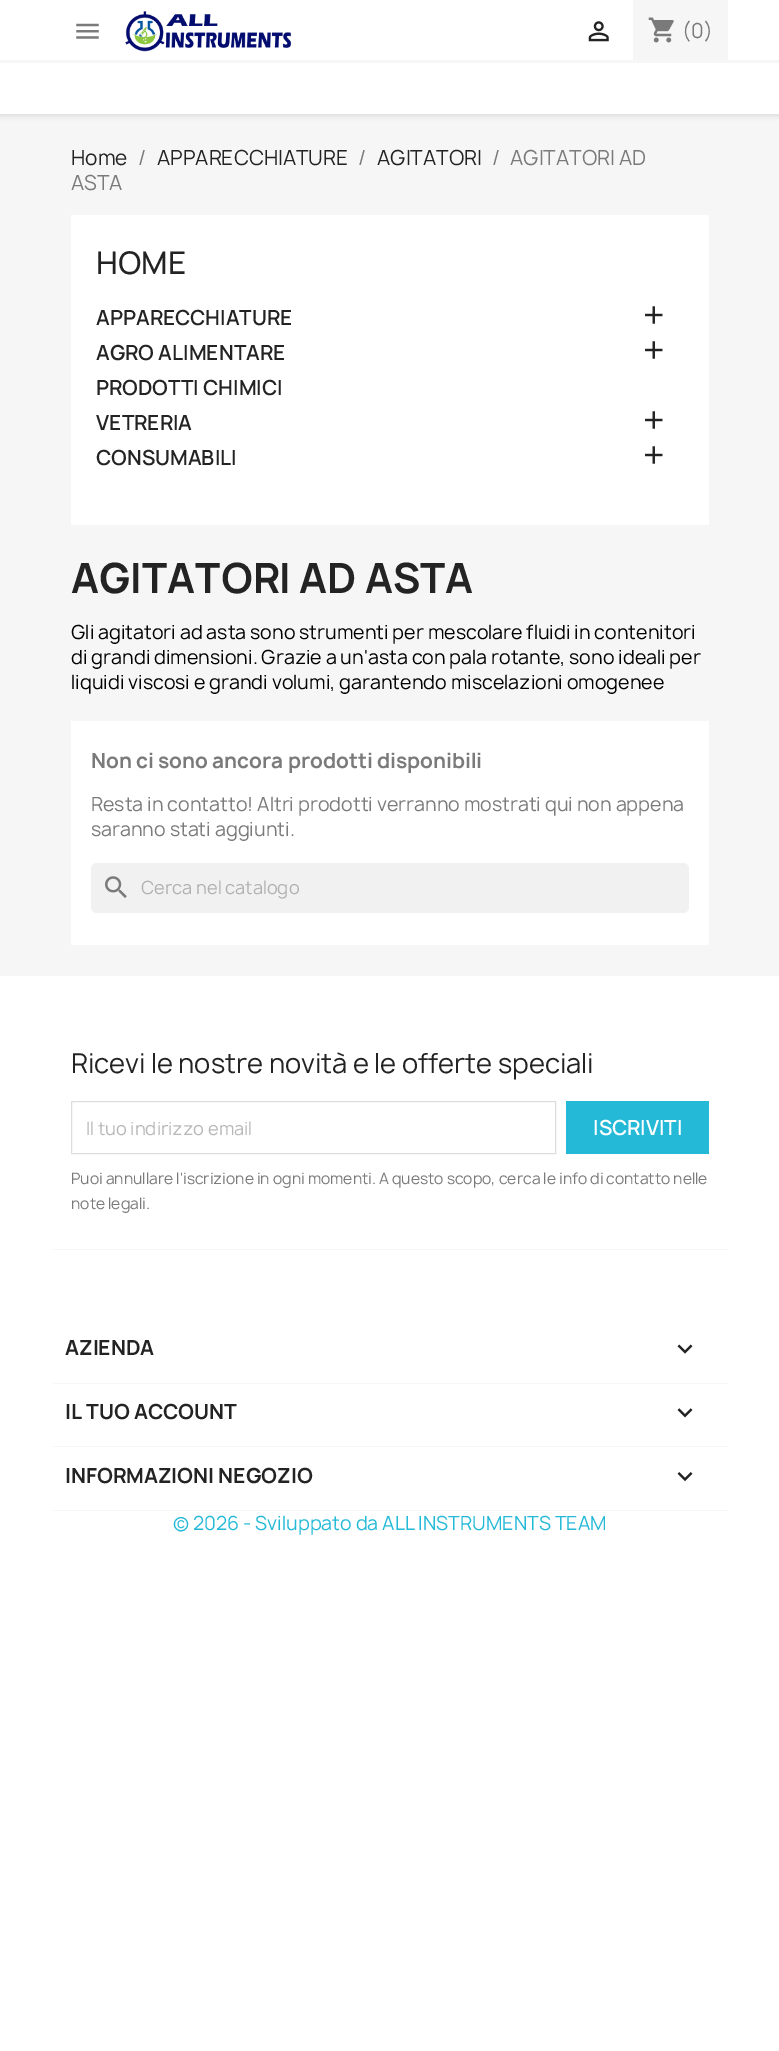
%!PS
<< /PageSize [779 2051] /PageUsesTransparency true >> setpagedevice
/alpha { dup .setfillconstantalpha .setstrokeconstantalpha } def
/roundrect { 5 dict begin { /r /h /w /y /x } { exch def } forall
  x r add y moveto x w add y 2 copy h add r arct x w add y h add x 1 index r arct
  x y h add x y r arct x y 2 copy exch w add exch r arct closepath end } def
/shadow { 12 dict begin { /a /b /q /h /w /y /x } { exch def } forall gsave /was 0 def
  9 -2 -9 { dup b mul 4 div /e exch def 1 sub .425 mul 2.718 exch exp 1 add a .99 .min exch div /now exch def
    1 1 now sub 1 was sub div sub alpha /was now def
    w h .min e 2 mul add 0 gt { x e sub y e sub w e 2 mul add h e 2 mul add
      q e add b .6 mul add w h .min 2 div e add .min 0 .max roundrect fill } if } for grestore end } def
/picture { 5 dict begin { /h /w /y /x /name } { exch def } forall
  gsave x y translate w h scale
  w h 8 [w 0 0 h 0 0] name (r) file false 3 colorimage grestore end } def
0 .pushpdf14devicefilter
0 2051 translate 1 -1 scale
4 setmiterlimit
1 setgray
0 0 779 2051 rectfill
0.965 setgray
0 114 779 862 rectfill
0 setgray
0 3 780 113 0 3 0.11 shadow
1 setgray
0 0 779 114 rectfill
0.965 setgray
0 60 779 3 rectfill
(img1.rgb) 76 23 23 16 picture
(img2.rgb) 125 11 166 41 picture
(img3.rgb) 588 21 21 21 picture
633 0 95 60 rectfill
(img4.rgb) 648 17 26 26 picture
/Manrope-Regular [20 0 0 -20 0 0] selectfont
0.478 setgray
682 38 moveto (\(0\)) show
0.137 setgray
71 165 moveto (Home) show
0.478 setgray
138 165 moveto (/) show
0.137 setgray
157 165 moveto (APPARECCHIATURE) show
0.478 setgray
358 165 moveto (/) show
0.137 setgray
377 165 moveto (AGITATORI) show
0.478 setgray
492 165 moveto (/) show
510 165 moveto (AGITATORI AD) show
71 190 moveto (ASTA) show
1 setgray
71 215 638 310 rectfill
/Manrope-Medium [30 0 0 -30 0 0] selectfont
0.137 setgray
96 274 moveto (HOME) show
/Manrope-SemiBold [20 0 0 -20 0 0] selectfont
96 325 moveto (APPARECCHIATURE) show
(img5.rgb) 645 306 18 18 picture
96 360 moveto (AGRO ALIMENTARE) show
(img5.rgb) 645 341 18 18 picture
96 395 moveto (PRODOTTI CHIMICI) show
96 430 moveto (VETRERIA) show
(img5.rgb) 645 411 18 18 picture
96 465 moveto (CONSUMABILI) show
(img5.rgb) 645 446 18 18 picture
/Manrope-Bold [40 0 0 -40 0 0] selectfont
71 593 moveto (AGITATORI AD ASTA) show
/Manrope-Regular [18.75 0 0 -18.75 0 0] selectfont
0 setgray
71 639 moveto (Gli agitatori ad asta sono strumenti per mescolare fluidi in contenitori) show
71 664 moveto (di grandi dimensioni. Grazie a un'asta con pala rotante, sono ideali per) show
71 689 moveto (liquidi viscosi e grandi volumi, garantendo miscelazioni omogenee) show
1 setgray
71 721 638 224 rectfill
/Manrope-Bold [20 0 0 -20 0 0] selectfont
0.478 setgray
91 768 moveto (Non ci sono ancora prodotti disponibili) show
/Manrope-Regular [18.75 0 0 -18.75 0 0] selectfont
91 811 moveto (Resta in contatto! Altri prodotti verranno mostrati qui non appena) show
91 836 moveto (saranno stati aggiunti.) show
0.945 setgray
91 863 598 50 6 roundrect fill
(img6.rgb) 105 876 22 22 picture
/Manrope-Regular [17.5 0 0 -17.5 0 0] selectfont
0.694 setgray
141 894 moveto (Cerca nel catalogo) show
0.965 setgray
53 1249 675 1 rectfill
/Manrope-Regular [26.25 0 0 -26.25 0 0] selectfont
0.137 setgray
71 1073 moveto (Ricevi le nostre novità e le offerte speciali) show
0.867 setgray
71.5 1101.5 484 52 rectstroke
/Manrope-Regular [17.5 0 0 -17.5 0 0] selectfont
0.718 setgray
86 1135 moveto (Il tuo indirizzo email) show
0.141 0.725 0.843 setrgbcolor
566 1101 143 53 rectfill
/Manrope-SemiBold [20 0 0 -20 0 0] selectfont
1 setgray
593 1135 moveto (ISCRIVITI) show
/Manrope-Regular [15 0 0 -15 0 0] selectfont
0.478 setgray
71 1184 moveto (Puoi annullare l'iscrizione in ogni momenti. A questo scopo, cerca le info di contatto nelle) show
71 1209 moveto (note legali.) show
0.965 setgray
53 1383 675 1 rectfill
/Manrope-Bold [20 0 0 -20 0 0] selectfont
0.137 setgray
65 1355 moveto (AZIENDA) show
(img7.rgb) 677 1344 16 10 picture
0.965 setgray
53 1446 675 1 rectfill
0.137 setgray
65 1419 moveto (IL TUO ACCOUNT) show
(img8.rgb) 677 1408 16 10 picture
0.965 setgray
53 1510 675 1 rectfill
0.137 setgray
65 1483 moveto (INFORMAZIONI NEGOZIO) show
(img9.rgb) 677 1472 16 10 picture
/Manrope-Regular [18.75 0 0 -18.75 0 0] selectfont
0.141 0.725 0.843 setrgbcolor
173 1530 moveto (© 2026 - Sviluppato da ALL INSTRUMENTS TEAM) show
.poppdf14devicefilter showpage
